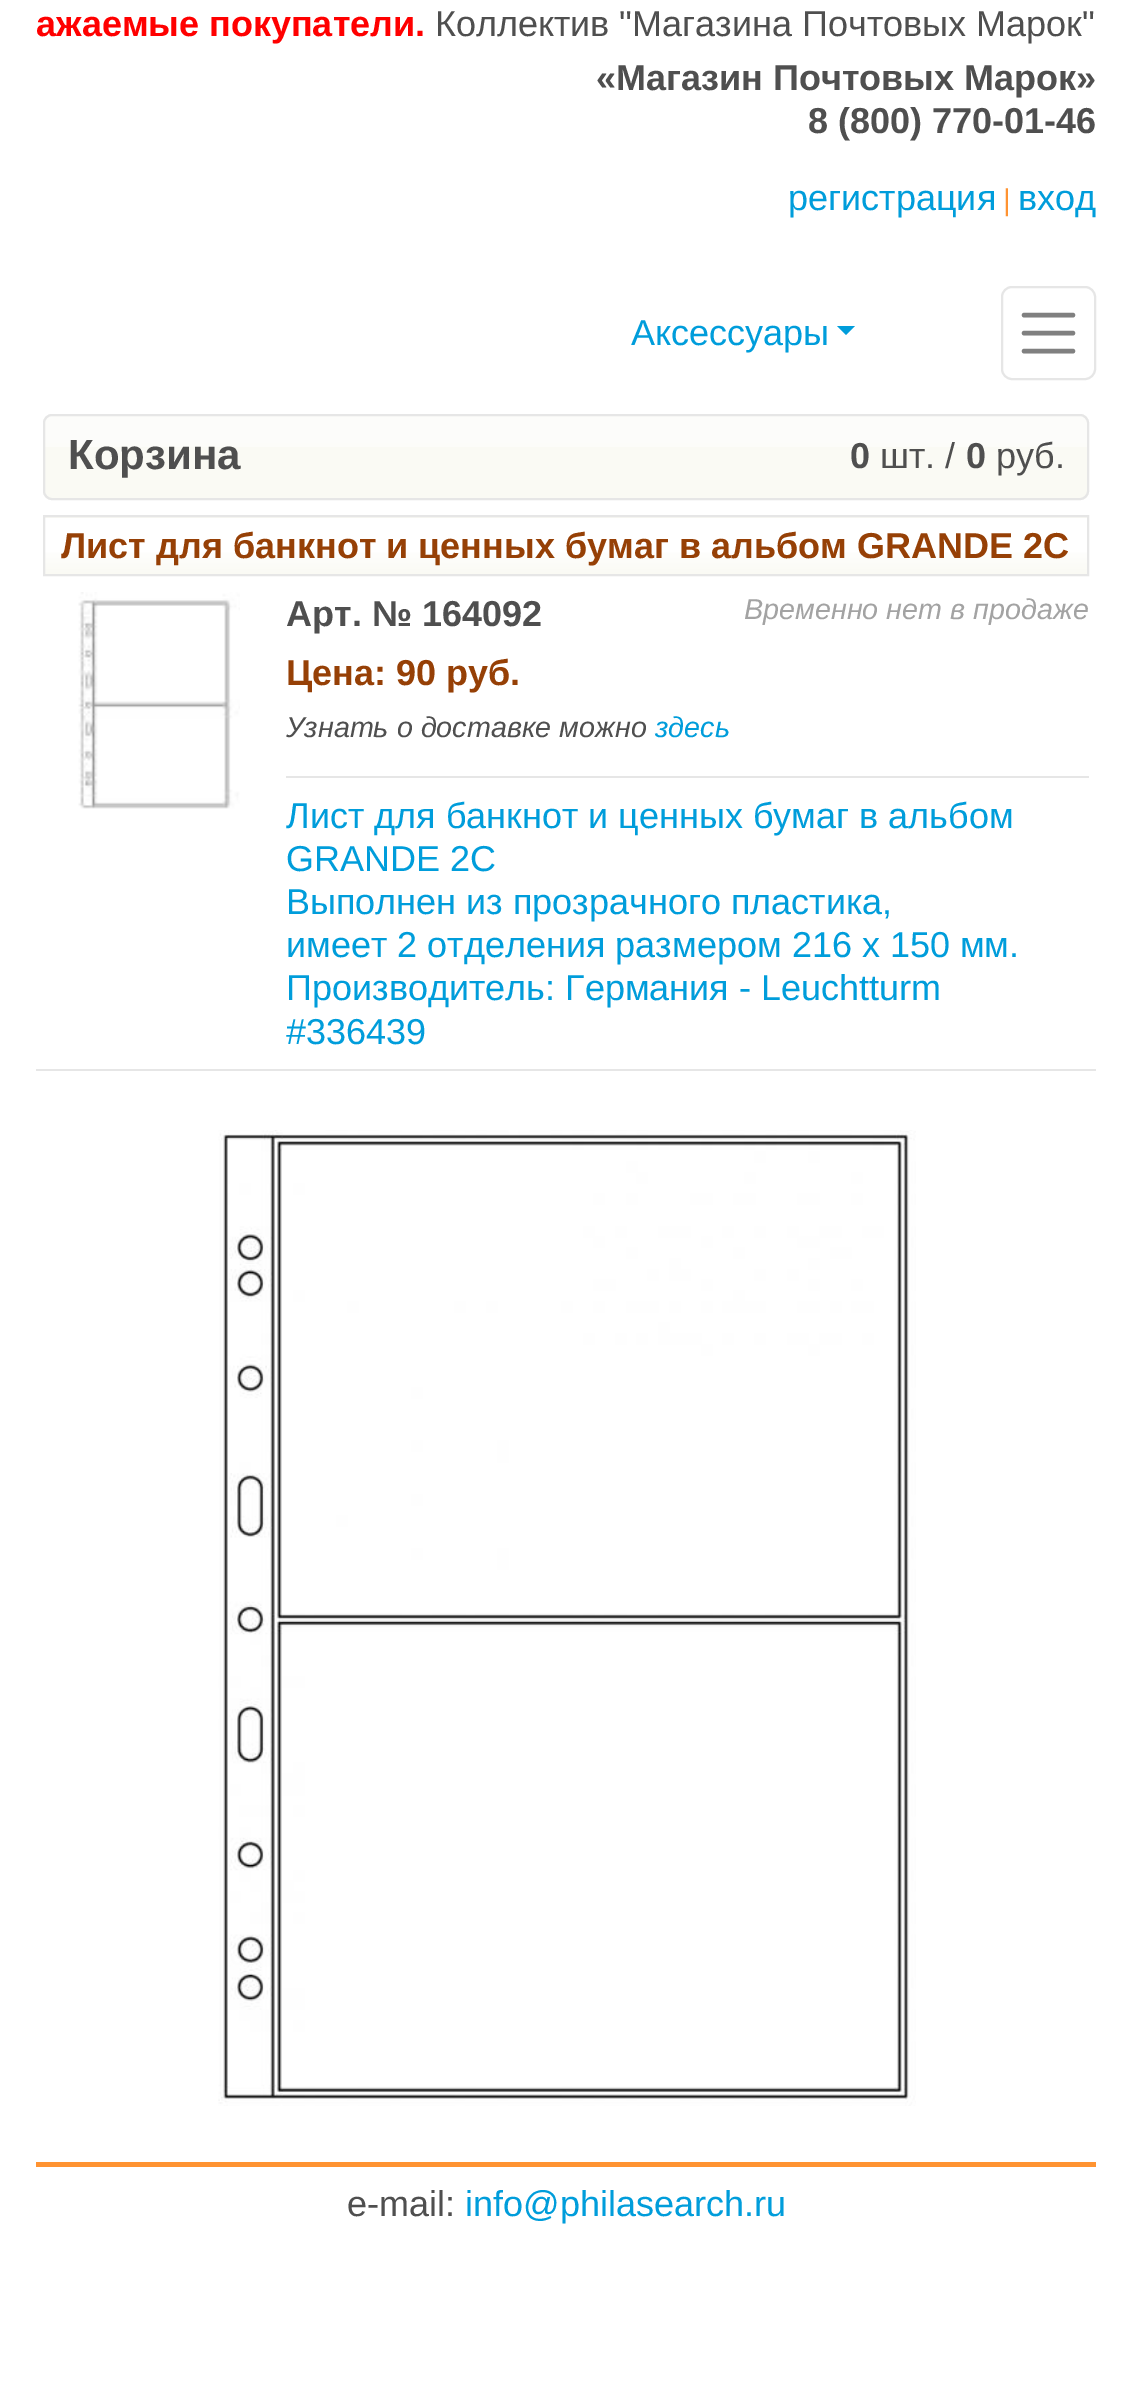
%!PS
<< /PageSize [1131 2402] >> setpagedevice
/roundrect { 5 dict begin { /r /h /w /y /x } { exch def } forall
  x r add y moveto x w add y 2 copy h add r arct x w add y h add x 1 index r arct
  x y h add x y r arct x y 2 copy exch w add exch r arct closepath end } def
/picture { 5 dict begin { /h /w /y /x /name } { exch def } forall
  gsave x y translate w h scale
  w h 8 [w 0 0 h 0 0] name (r) file false 3 colorimage grestore end } def
0 2402 translate 1 -1 scale
4 setmiterlimit
1 setgray
0 0 1131 2402 rectfill
/LiberationSans-Bold [36 0 0 -36 0 0] selectfont
1 0 0 setrgbcolor
36 36 moveto (ажаемые покупатели.) show
/LiberationSans-Regular [36 0 0 -36 0 0] selectfont
0.31 setgray
435 36 moveto (Коллектив "Магазина Почтовых Марок") show
/LiberationSans-Bold [36 0 0 -36 0 0] selectfont
596 90 moveto («Магазин Почтовых Марок») show
808 133 moveto (8 \(800\) 770-01-46) show
/LiberationSans-Regular [36 0 0 -36 0 0] selectfont
0 0.616 0.859 setrgbcolor
788 210 moveto (регистрация) show
/LiberationSans-Regular [30 0 0 -30 0 0] selectfont
1 0.576 0.192 setrgbcolor
1003 210 moveto (|) show
/LiberationSans-Regular [36 0 0 -36 0 0] selectfont
0 0.616 0.859 setrgbcolor
1018 210 moveto (вход) show
631 345 moveto (Аксессуары) show
newpath 837 326 moveto 855 326 lineto 846 335 lineto closepath fill
0.902 setgray
2 setlinewidth
1002 287 93 92 10 roundrect stroke
0.502 setgray
4.5 setlinewidth
1 setlinecap
newpath 1024 315 moveto 1073 315 lineto 1024 333 moveto 1073 333 lineto 1024 351 moveto 1073 351 lineto stroke
0.98 0.98 0.957 setrgbcolor
43 414 1046 86 9 roundrect fill
(img1.rgb) 43 414 1046 33 picture
0.902 setgray
2 setlinewidth
0 setlinecap
44 415 1044 84 8 roundrect stroke
/LiberationSans-Bold [42 0 0 -42 0 0] selectfont
0.31 setgray
68 469 moveto (Корзина) show
/LiberationSans-Bold [36 0 0 -36 0 0] selectfont
850 468 moveto (0) show
/LiberationSans-Regular [36 0 0 -36 0 0] selectfont
880 468 moveto (шт. /) show
/LiberationSans-Bold [36 0 0 -36 0 0] selectfont
966 468 moveto (0) show
/LiberationSans-Regular [36 0 0 -36 0 0] selectfont
996 468 moveto (руб.) show
gsave newpath 43 517 moveto 1089 517 lineto 1089 518 lineto 43 518 lineto closepath clip newpath
<< /ShadingType 2 /ColorSpace /DeviceRGB /Coords [566 518 566 461] /Extend [true true] /Function << /FunctionType 3 /Domain [0 1] /Functions [<< /FunctionType 2 /Domain [0 1] /C0 [0.98 0.98 0.957] /C1 [1 1 1] /N 1 >> << /FunctionType 2 /Domain [0 1] /C0 [1 1 1] /C1 [1 1 1] /N 1 >>] /Bounds [0.5] /Encode [0 1 0 1] >> >> shfill grestore
gsave newpath 45 552 moveto 1087 552 lineto 1087 574 lineto 45 574 lineto closepath clip newpath
<< /ShadingType 2 /ColorSpace /DeviceRGB /Coords [566 574 566 518] /Extend [true true] /Function << /FunctionType 3 /Domain [0 1] /Functions [<< /FunctionType 2 /Domain [0 1] /C0 [0.98 0.98 0.957] /C1 [1 1 1] /N 1 >> << /FunctionType 2 /Domain [0 1] /C0 [1 1 1] /C1 [1 1 1] /N 1 >>] /Bounds [0.5] /Encode [0 1 0 1] >> >> shfill grestore
0.902 setgray
44 516 1044 59 rectstroke
gsave
61 524 1010 43 rectclip
/LiberationSans-Bold [36 0 0 -36 0 0] selectfont
0.588 0.251 0.024 setrgbcolor
61 558 moveto (Лист для банкнот и ценных бумаг в альбом GRANDE 2С) show
grestore
(img2.rgb) 78 592 162 217 picture
/LiberationSans-Bold [36 0 0 -36 0 0] selectfont
0.31 setgray
286 626 moveto (Арт. № 164092) show
0.588 0.251 0.024 setrgbcolor
286 685 moveto (Цена: 90 руб.) show
/LiberationSans-Italic [28.75 0 0 -28.75 0 0] selectfont
0.31 setgray
286 737 moveto (Узнать о доставке можно) show
0 0.616 0.859 setrgbcolor
655 737 moveto (здесь) show
0.639 setgray
744 619 moveto (Временно нет в продаже) show
0.902 setgray
286 776 803 2 rectfill
/LiberationSans-Regular [36 0 0 -36 0 0] selectfont
0 0.616 0.859 setrgbcolor
286 828 moveto (Лист для банкнот и ценных бумаг в альбом) show
286 871 moveto (GRANDE 2С) show
286 914 moveto (Выполнен из прозрачного пластика,) show
286 957 moveto (имеет 2 отделения размером 216 x 150 мм.) show
286 1000 moveto (Производитель: Германия - Leuchtturm) show
286 1044 moveto (#336439) show
0.902 setgray
36 1069 1060 2 rectfill
(img3.rgb) 218 1130 698 976 picture
1 0.576 0.192 setrgbcolor
36 2162 1060 5 rectfill
0.31 setgray
347 2216 moveto (e-mail:) show
0 0.616 0.859 setrgbcolor
465 2216 moveto (info@philasearch.ru) show
showpage
